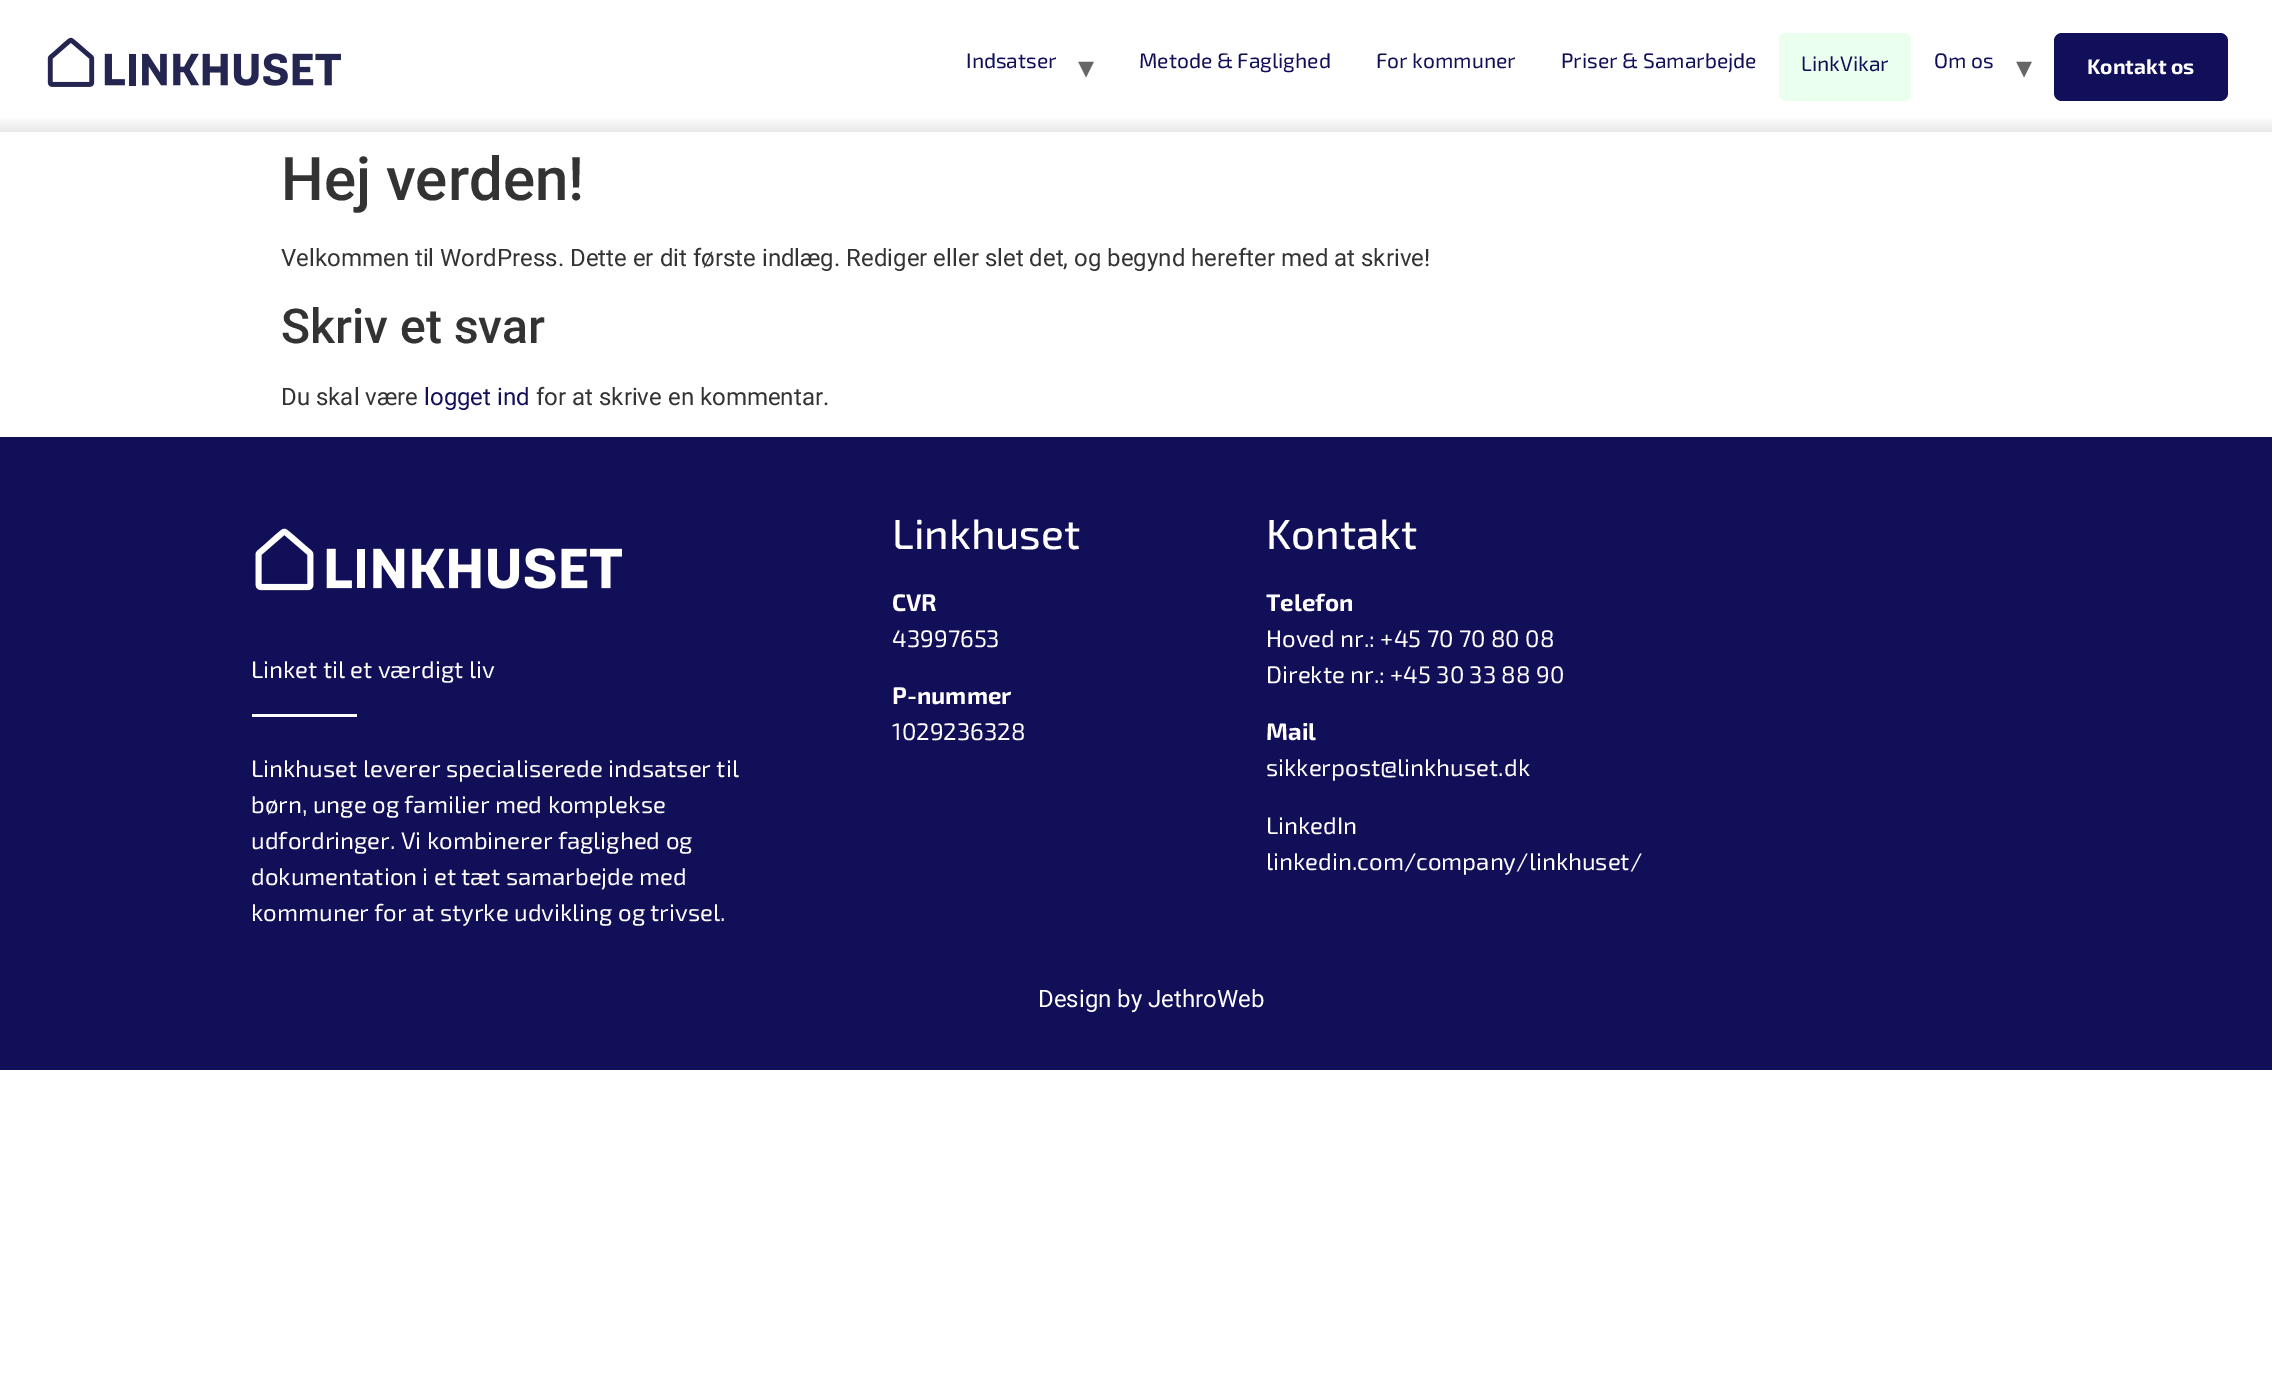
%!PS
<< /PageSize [2272 1395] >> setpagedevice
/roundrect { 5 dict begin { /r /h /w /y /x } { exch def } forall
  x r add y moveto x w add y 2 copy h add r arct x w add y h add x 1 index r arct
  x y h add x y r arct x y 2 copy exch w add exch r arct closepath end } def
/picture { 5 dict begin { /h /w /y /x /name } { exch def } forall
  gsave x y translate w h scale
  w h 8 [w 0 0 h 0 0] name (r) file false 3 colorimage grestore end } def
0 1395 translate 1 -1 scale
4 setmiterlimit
1 setgray
0 0 2272 1395 rectfill
gsave newpath 0 118 moveto 2272 118 lineto 2272 132 lineto 0 132 lineto closepath clip newpath
<< /ShadingType 2 /ColorSpace /DeviceRGB /Coords [1136 132 1136 0] /Extend [true true] /Function << /FunctionType 3 /Domain [0 1] /Functions [<< /FunctionType 2 /Domain [0 1] /C0 [0.914 0.914 0.914] /C1 [1 1 1] /N 1 >> << /FunctionType 2 /Domain [0 1] /C0 [1 1 1] /C1 [1 1 1] /N 1 >>] /Bounds [0.12] /Encode [0 1 0 1] >> >> shfill grestore
(img1.rgb) 47 37 294 50 picture
/Exo2-Regular [21 0 0 -21 0 0] selectfont
0.067 0.059 0.353 setrgbcolor
966 68 moveto (Indsatser) show
/DejaVuSans-Regular [32 0 0 -32 0 0] selectfont
0.4 setgray
1078 78 moveto (▾) show
/Exo2-Regular [21 0 0 -21 0 0] selectfont
0.067 0.059 0.353 setrgbcolor
1139 68 moveto (Metode & Faglighed) show
1376 68 moveto (For kommuner) show
1561 68 moveto (Priser & Samarbejde) show
0.918 1 0.933 setrgbcolor
1779 33 132 68 6 roundrect fill
0.067 0.059 0.353 setrgbcolor
1801 71 moveto (LinkVikar) show
1934 68 moveto (Om os) show
/DejaVuSans-Regular [32 0 0 -32 0 0] selectfont
0.4 setgray
2016 78 moveto (▾) show
0.067 0.059 0.353 setrgbcolor
2054 33 174 68 8 roundrect fill
/Exo2-Bold [21 0 0 -21 0 0] selectfont
1 setgray
2087 74 moveto (Kontakt os) show
/Roboto-Medium [60 0 0 -60 0 0] selectfont
0.2 setgray
281 200 moveto (Hej verden!) show
/Roboto-Regular [24 0 0 -24 0 0] selectfont
281 266 moveto (Velkommen til WordPress. Dette er dit første indlæg. Rediger eller slet det, og begynd herefter med at skrive!) show
/Roboto-Medium [48 0 0 -48 0 0] selectfont
281 343 moveto (Skriv et svar) show
/Roboto-Regular [24 0 0 -24 0 0] selectfont
281 405 moveto (Du skal være) show
0.067 0.059 0.353 setrgbcolor
424 405 moveto (logget ind) show
0.2 setgray
536 405 moveto (for at skrive en kommentar.) show
0.071 0.059 0.349 setrgbcolor
0 437 2272 633 rectfill
(img2.rgb) 255 528 367 63 picture
/Exo2-Regular [24 0 0 -24 0 0] selectfont
1 setgray
251 678 moveto (Linket til et værdigt liv) show
252 714 105 3 rectfill
251 777 moveto (Linkhuset leverer specialiserede indsatser til) show
251 813 moveto (børn, unge og familier med komplekse) show
251 849 moveto (udfordringer. Vi kombinerer faglighed og) show
251 885 moveto (dokumentation i et tæt samarbejde med) show
251 921 moveto (kommuner for at styrke udvikling og trivsel.) show
/Exo2-Medium [42 0 0 -42 0 0] selectfont
892 549 moveto (Linkhuset) show
/Exo2-Bold [24 0 0 -24 0 0] selectfont
892 611 moveto (CVR) show
/Exo2-Regular [24 0 0 -24 0 0] selectfont
892 647 moveto (43997653) show
/Exo2-Bold [24 0 0 -24 0 0] selectfont
892 704 moveto (P-nummer) show
/Exo2-Regular [24 0 0 -24 0 0] selectfont
892 740 moveto (1029236328) show
/Exo2-Medium [42 0 0 -42 0 0] selectfont
1266 549 moveto (Kontakt) show
/Exo2-Bold [24 0 0 -24 0 0] selectfont
1266 611 moveto (Telefon) show
/Exo2-Regular [24 0 0 -24 0 0] selectfont
1266 647 moveto (Hoved nr.: +45 70 70 80 08) show
1266 683 moveto (Direkte nr.: +45 30 33 88 90) show
/Exo2-Bold [24 0 0 -24 0 0] selectfont
1266 740 moveto (Mail) show
/Exo2-Regular [24 0 0 -24 0 0] selectfont
1266 776 moveto (sikkerpost@linkhuset.dk) show
1266 834 moveto (LinkedIn) show
1266 870 moveto (linkedin.com/company/linkhuset/) show
/Roboto-Regular [24 0 0 -24 0 0] selectfont
1038 1007 moveto (Design by JethroWeb) show
showpage
